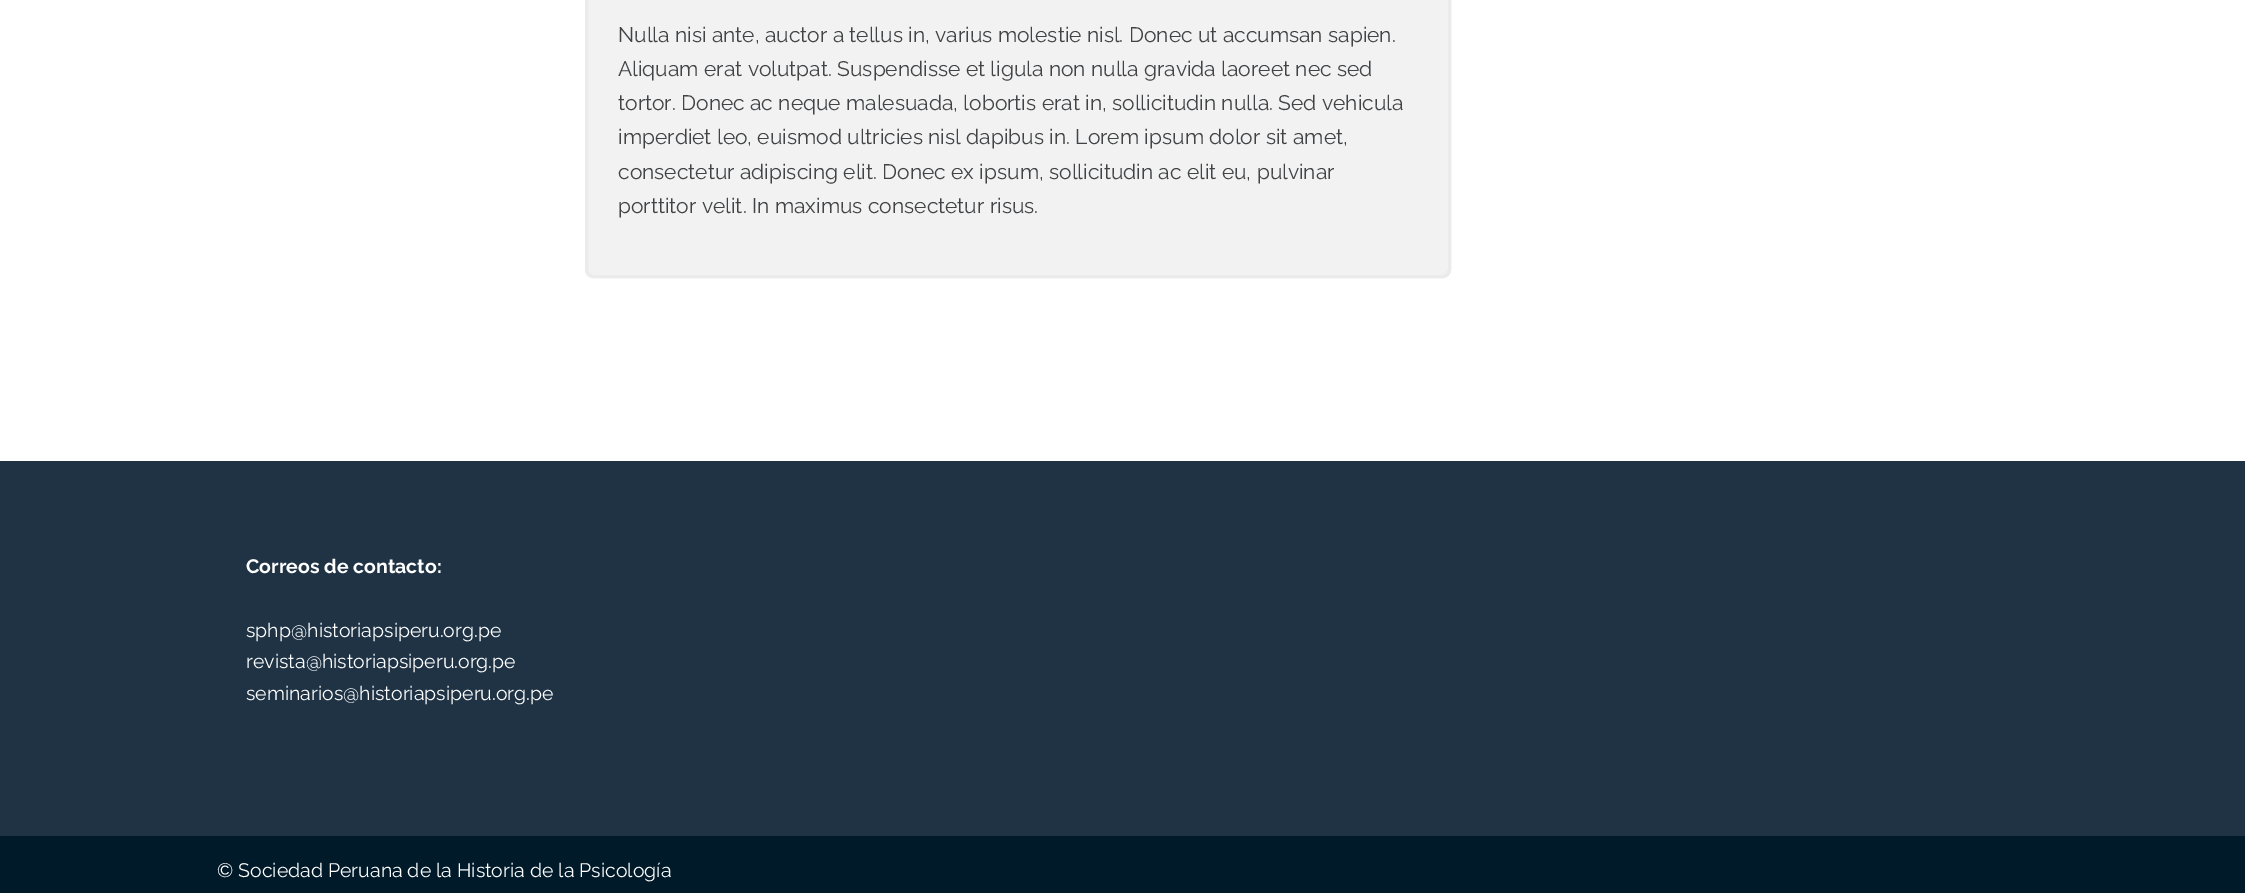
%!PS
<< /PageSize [2245 893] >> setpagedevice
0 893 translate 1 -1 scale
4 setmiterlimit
1 setgray
0 0 2245 893 rectfill
0.941 setgray
2 setlinewidth
newpath 586 -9 moveto 1443 -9 lineto 1447 -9 1450 -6 1450 -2 curveto 1450 270 lineto 1450 274 1447 277 1443 277 curveto 593 277 lineto 589 277 586 274 586 270 curveto closepath stroke
0.949 setgray
newpath 586.5 -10.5 moveto 1442 -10.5 lineto 1446 -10.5 1449.5 -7 1449.5 -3 curveto 1449.5 269 lineto 1449.5 273 1446 276.5 1442 276.5 curveto 594 276.5 lineto 590 276.5 586.5 273 586.5 269 curveto closepath gsave fill grestore
0.922 setgray
3 setlinewidth
stroke
/Raleway-Regular [21 0 0 -21 0 0] selectfont
0.255 0.263 0.271 setrgbcolor
618 42 moveto (Nulla nisi ante, auctor a tellus in, varius molestie nisl. Donec ut accumsan sapien.) show
618 76 moveto (Aliquam erat volutpat. Suspendisse et ligula non nulla gravida laoreet nec sed) show
618 110 moveto (tortor. Donec ac neque malesuada, lobortis erat in, sollicitudin nulla. Sed vehicula) show
618 144 moveto (imperdiet leo, euismod ultricies nisl dapibus in. Lorem ipsum dolor sit amet,) show
618 179 moveto (consectetur adipiscing elit. Donec ex ipsum, sollicitudin ac elit eu, pulvinar) show
618 213 moveto (porttitor velit. In maximus consectetur risus.) show
0.122 0.2 0.271 setrgbcolor
0 461 2245 375 rectfill
/Raleway-Bold [19.5 0 0 -19.5 0 0] selectfont
1 setgray
246 573 moveto (Correos de contacto:) show
/Raleway-Regular [19.5 0 0 -19.5 0 0] selectfont
246 637 moveto (sphp@historiapsiperu.org.pe) show
246 668 moveto (revista@historiapsiperu.org.pe) show
246 700 moveto (seminarios@historiapsiperu.org.pe) show
0.004 0.102 0.161 setrgbcolor
0 836 2245 57 rectfill
1 setgray
217 877 moveto (© Sociedad Peruana de la Historia de la Psicología) show
showpage
